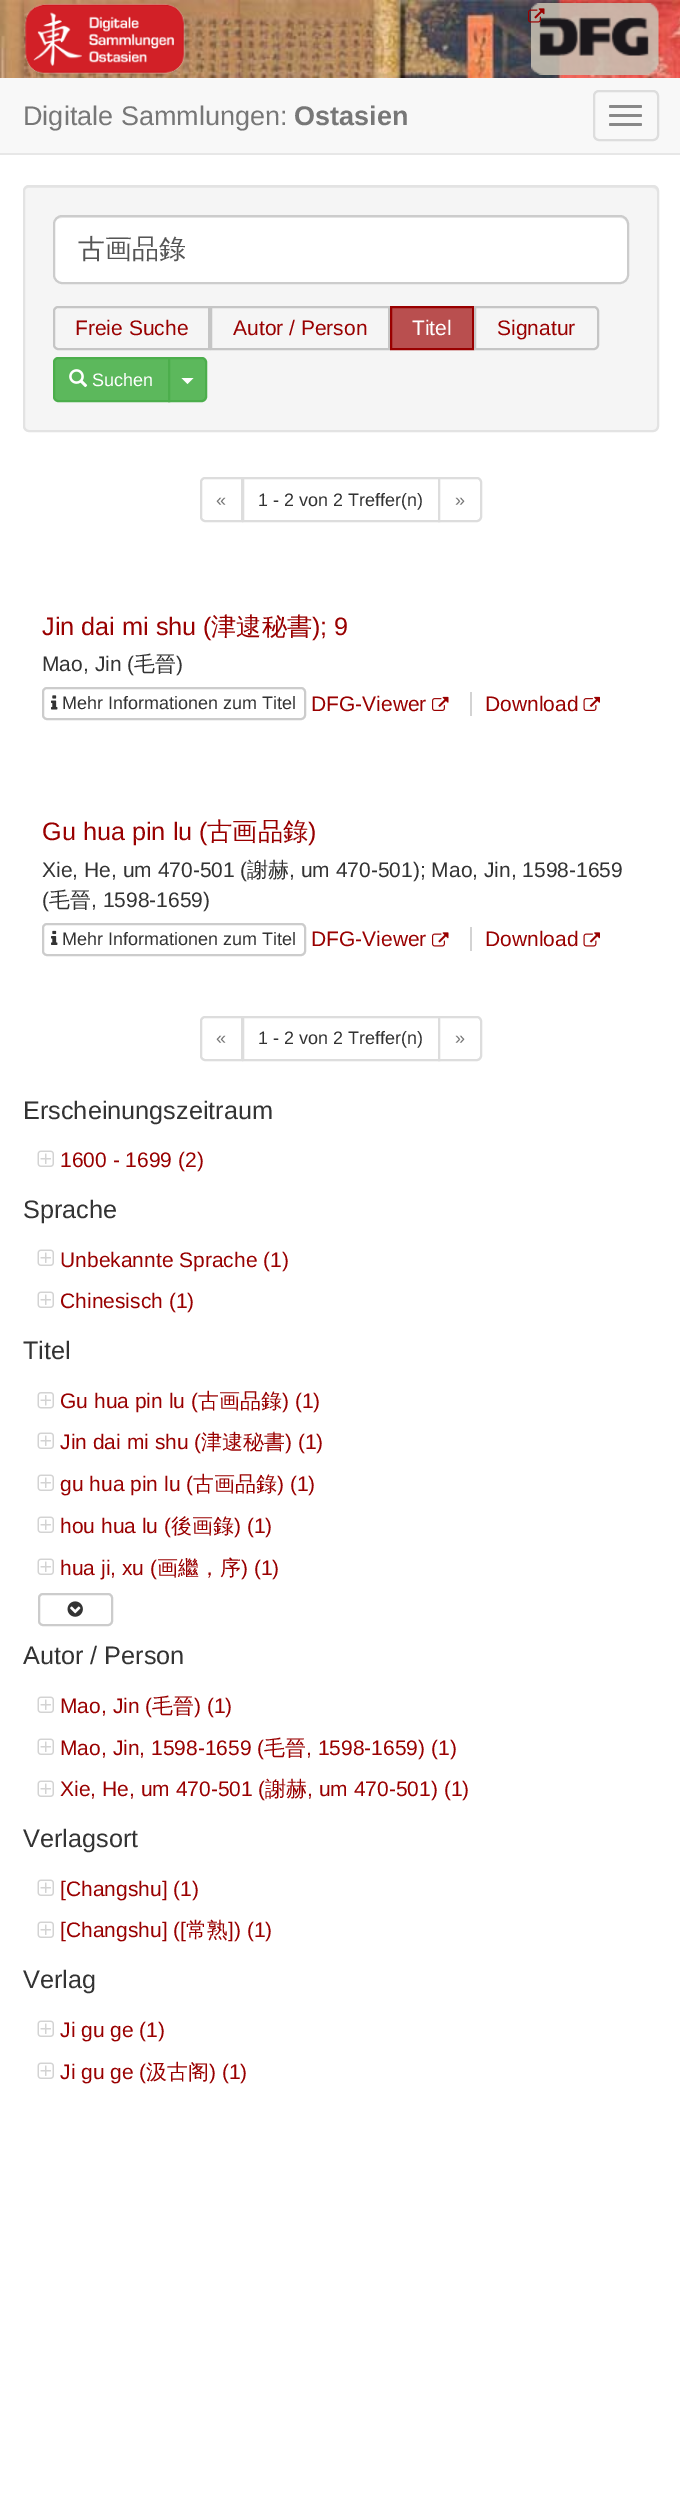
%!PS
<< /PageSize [680 2520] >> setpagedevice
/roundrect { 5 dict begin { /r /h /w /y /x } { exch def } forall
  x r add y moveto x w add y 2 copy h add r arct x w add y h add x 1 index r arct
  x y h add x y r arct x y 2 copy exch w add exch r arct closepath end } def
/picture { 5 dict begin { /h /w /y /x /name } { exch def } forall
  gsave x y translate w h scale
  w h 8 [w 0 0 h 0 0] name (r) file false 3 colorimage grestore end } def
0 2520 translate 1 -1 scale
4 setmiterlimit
1 setgray
0 0 680 2520 rectfill
(img1.rgb) 0 0 680 78 picture
(img2.rgb) 25 3 160 71 picture
(img3.rgb) 531 3 128 72 picture
(img4.rgb) 528 8 17 15 picture
0.973 setgray
0 78 680 75 rectfill
0.906 setgray
0 153 680 2 rectfill
/LiberationSans-Regular [27 0 0 -27 0 0] selectfont
0.467 setgray
23 125 moveto (Digitale Sammlungen:) show
/LiberationSans-Bold [27 0 0 -27 0 0] selectfont
294 125 moveto (Ostasien) show
0.867 setgray
2 setlinewidth
594 91 64 49 5 roundrect stroke
0.533 setgray
609 105 33 3 1.5 roundrect fill
609 114 33 3 1.5 roundrect fill
609 123 33 3 1.5 roundrect fill
0.961 setgray
23 185 636 247 6 roundrect fill
0.914 setgray
newpath 28 188 moveto 652 188 lineto 655 188 657 190 657 192 curveto 657 189 655 186 652 186 curveto 29 186 lineto 26 186 24 189 24 192 curveto 24 190 26 188 28 188 curveto closepath fill
0.89 setgray
24 186 634 245 5 roundrect stroke
1 setgray
53 215 576 69 9 roundrect fill
0.925 setgray
newpath 62 218 moveto 620 218 lineto 624 218 627 221 627 225 curveto 627 220 624 216 619 216 curveto 62 216 lineto 57 216 54 220 54 225 curveto 54 221 57 218 62 218 curveto closepath fill
0.8 setgray
54 216 574 67 8 roundrect stroke
/WenQuanYiZenHei-Medium [27 0 0 -27 0 0] selectfont
0.333 setgray
78 258 moveto (古画品錄) show
0.773 setgray
newpath 58 307 moveto 209 307 lineto 209 349 lineto 58 349 lineto 56 349 54 347 54 345 curveto 54 311 lineto 54 309 56 307 58 307 curveto closepath stroke
/LiberationSans-Regular [21 0 0 -21 0 0] selectfont
0.6 0 0 setrgbcolor
75 335 moveto (Freie Suche) show
0.773 setgray
211 307 178 42 rectstroke
0.6 0 0 setrgbcolor
233 335 moveto (Autor / Person) show
0.725 0.31 0.31 setrgbcolor
newpath 391 307 moveto 473 307 lineto 473 349 lineto 391 349 lineto closepath gsave fill grestore
0.6 0 0 setrgbcolor
stroke
1 setgray
412 335 moveto (Titel) show
0.773 setgray
newpath 475 307 moveto 594 307 lineto 596 307 598 309 598 311 curveto 598 345 lineto 598 347 596 349 594 349 curveto 475 349 lineto closepath stroke
0.6 0 0 setrgbcolor
497 335 moveto (Signatur) show
0.361 0.722 0.361 setrgbcolor
newpath 58 358 moveto 169 358 lineto 169 401 lineto 58 401 lineto 56 401 54 399 54 397 curveto 54 362 lineto 54 360 56 358 58 358 curveto closepath gsave fill grestore
0.298 0.682 0.298 setrgbcolor
stroke
(img5.rgb) 69 369 19 19 picture
/LiberationSans-Regular [18 0 0 -18 0 0] selectfont
1 setgray
92 386 moveto (Suchen) show
0.361 0.722 0.361 setrgbcolor
newpath 169 358 moveto 202 358 lineto 204 358 206 360 206 362 curveto 206 397 lineto 206 399 204 401 202 401 curveto 169 401 lineto closepath gsave fill grestore
0.298 0.682 0.298 setrgbcolor
stroke
1 setgray
newpath 181.5 378 moveto 193.5 378 lineto 187.5 384 lineto closepath fill
0.867 setgray
newpath 205 478 moveto 242 478 lineto 242 521 lineto 205 521 lineto 203 521 201 519 201 517 curveto 201 482 lineto 201 480 203 478 205 478 curveto closepath stroke
0.467 setgray
216 506 moveto («) show
0.867 setgray
243 478 196 43 rectstroke
0.2 setgray
258 506 moveto (1 - 2 von 2 Treffer\(n\)) show
1 setgray
newpath 439 478 moveto 477 478 lineto 479 478 481 480 481 482 curveto 481 517 lineto 481 519 479 521 477 521 curveto 439 521 lineto closepath gsave fill grestore
0.867 setgray
stroke
0.467 setgray
455 506 moveto (») show
/LiberationSans-Regular [25.25 0 0 -25.25 0 0] selectfont
0.6 0 0 setrgbcolor
42 635 moveto (Jin dai mi shu \() show
/WenQuanYiZenHei-Medium [25.25 0 0 -25.25 0 0] selectfont
211 635 moveto (津逮秘書) show
/LiberationSans-Regular [25.25 0 0 -25.25 0 0] selectfont
312 635 moveto (\); 9) show
/LiberationSans-Regular [21 0 0 -21 0 0] selectfont
0.2 setgray
42 671 moveto (Mao, Jin \() show
/WenQuanYiZenHei-Medium [21 0 0 -21 0 0] selectfont
134 671 moveto (毛晉) show
/LiberationSans-Regular [21 0 0 -21 0 0] selectfont
176 671 moveto (\)) show
0.8 setgray
43 688 262 31 4 roundrect stroke
(img6.rgb) 51 695 7 15 picture
/LiberationSans-Regular [18 0 0 -18 0 0] selectfont
0.2 setgray
62 709 moveto (Mehr Informationen zum Titel) show
/LiberationSans-Regular [21 0 0 -21 0 0] selectfont
0.6 0 0 setrgbcolor
311 711 moveto (DFG-Viewer) show
(img7.rgb) 432 696 17 15 picture
485 711 moveto (Download) show
0.827 setgray
470 692 2 24 rectfill
(img8.rgb) 583 696 17 15 picture
/LiberationSans-Regular [25.25 0 0 -25.25 0 0] selectfont
0.6 0 0 setrgbcolor
42 840 moveto (Gu hua pin lu \() show
/WenQuanYiZenHei-Medium [25.25 0 0 -25.25 0 0] selectfont
207 840 moveto (古画品錄) show
/LiberationSans-Regular [25.25 0 0 -25.25 0 0] selectfont
308 840 moveto (\)) show
/LiberationSans-Regular [21 0 0 -21 0 0] selectfont
0.2 setgray
42 877 moveto (Xie, He, um 470-501 \() show
/WenQuanYiZenHei-Medium [21 0 0 -21 0 0] selectfont
247 877 moveto (謝赫) show
/LiberationSans-Regular [21 0 0 -21 0 0] selectfont
289 877 moveto (, um 470-501\); Mao, Jin, 1598-1659) show
42 907 moveto (\() show
/WenQuanYiZenHei-Medium [21 0 0 -21 0 0] selectfont
49 907 moveto (毛晉) show
/LiberationSans-Regular [21 0 0 -21 0 0] selectfont
91 907 moveto (, 1598-1659\)) show
0.8 setgray
43 924 262 31 4 roundrect stroke
(img9.rgb) 51 930 7 15 picture
/LiberationSans-Regular [18 0 0 -18 0 0] selectfont
0.2 setgray
62 945 moveto (Mehr Informationen zum Titel) show
/LiberationSans-Regular [21 0 0 -21 0 0] selectfont
0.6 0 0 setrgbcolor
311 946 moveto (DFG-Viewer) show
(img10.rgb) 432 932 17 15 picture
485 946 moveto (Download) show
0.827 setgray
470 927 2 24 rectfill
(img11.rgb) 583 932 17 15 picture
0.867 setgray
newpath 205 1017 moveto 242 1017 lineto 242 1060 lineto 205 1060 lineto 203 1060 201 1058 201 1056 curveto 201 1021 lineto 201 1019 203 1017 205 1017 curveto closepath stroke
/LiberationSans-Regular [18 0 0 -18 0 0] selectfont
0.467 setgray
216 1044 moveto («) show
0.867 setgray
243 1017 196 43 rectstroke
0.2 setgray
258 1044 moveto (1 - 2 von 2 Treffer\(n\)) show
1 setgray
newpath 439 1017 moveto 477 1017 lineto 479 1017 481 1019 481 1021 curveto 481 1056 lineto 481 1058 479 1060 477 1060 curveto 439 1060 lineto closepath gsave fill grestore
0.867 setgray
stroke
0.467 setgray
455 1044 moveto (») show
/LiberationSans-Regular [25.25 0 0 -25.25 0 0] selectfont
0.2 setgray
23 1119 moveto (Erscheinungszeitraum) show
(img12.rgb) 37 1150 17 17 picture
/LiberationSans-Regular [21 0 0 -21 0 0] selectfont
0.6 0 0 setrgbcolor
60 1167 moveto (1600 - 1699 \(2\)) show
/LiberationSans-Regular [25.25 0 0 -25.25 0 0] selectfont
0.2 setgray
23 1218 moveto (Sprache) show
(img12.rgb) 37 1249 17 17 picture
/LiberationSans-Regular [21 0 0 -21 0 0] selectfont
0.6 0 0 setrgbcolor
60 1267 moveto (Unbekannte Sprache \(1\)) show
(img12.rgb) 37 1291 17 17 picture
60 1308 moveto (Chinesisch \(1\)) show
/LiberationSans-Regular [25.25 0 0 -25.25 0 0] selectfont
0.2 setgray
23 1359 moveto (Titel) show
(img13.rgb) 37 1392 17 17 picture
/LiberationSans-Regular [21 0 0 -21 0 0] selectfont
0.6 0 0 setrgbcolor
60 1408 moveto (Gu hua pin lu \() show
/WenQuanYiZenHei-Medium [21 0 0 -21 0 0] selectfont
198 1408 moveto (古画品錄) show
/LiberationSans-Regular [21 0 0 -21 0 0] selectfont
282 1408 moveto (\) \(1\)) show
(img12.rgb) 37 1432 17 17 picture
60 1449 moveto (Jin dai mi shu \() show
/WenQuanYiZenHei-Medium [21 0 0 -21 0 0] selectfont
201 1449 moveto (津逮秘書) show
/LiberationSans-Regular [21 0 0 -21 0 0] selectfont
285 1449 moveto (\) \(1\)) show
(img12.rgb) 37 1474 17 17 picture
60 1491 moveto (gu hua pin lu \() show
/WenQuanYiZenHei-Medium [21 0 0 -21 0 0] selectfont
193 1491 moveto (古画品錄) show
/LiberationSans-Regular [21 0 0 -21 0 0] selectfont
277 1491 moveto (\) \(1\)) show
(img12.rgb) 37 1516 17 17 picture
60 1533 moveto (hou hua lu \() show
/WenQuanYiZenHei-Medium [21 0 0 -21 0 0] selectfont
171 1533 moveto (後画錄) show
/LiberationSans-Regular [21 0 0 -21 0 0] selectfont
234 1533 moveto (\) \(1\)) show
(img12.rgb) 37 1558 17 17 picture
60 1575 moveto (hua ji, xu \() show
/WenQuanYiZenHei-Medium [21 0 0 -21 0 0] selectfont
157 1575 moveto (画繼，序) show
/LiberationSans-Regular [21 0 0 -21 0 0] selectfont
241 1575 moveto (\) \(1\)) show
0.8 setgray
39 1594 73 31 4 roundrect stroke
(img14.rgb) 67 1601 16 16 picture
/LiberationSans-Regular [25.25 0 0 -25.25 0 0] selectfont
0.2 setgray
23 1664 moveto (Autor / Person) show
(img12.rgb) 37 1696 17 17 picture
/LiberationSans-Regular [21 0 0 -21 0 0] selectfont
0.6 0 0 setrgbcolor
60 1713 moveto (Mao, Jin \() show
/WenQuanYiZenHei-Medium [21 0 0 -21 0 0] selectfont
152 1713 moveto (毛晉) show
/LiberationSans-Regular [21 0 0 -21 0 0] selectfont
194 1713 moveto (\) \(1\)) show
(img12.rgb) 37 1738 17 17 picture
60 1755 moveto (Mao, Jin, 1598-1659 \() show
/WenQuanYiZenHei-Medium [21 0 0 -21 0 0] selectfont
264 1755 moveto (毛晉) show
/LiberationSans-Regular [21 0 0 -21 0 0] selectfont
306 1755 moveto (, 1598-1659\) \(1\)) show
(img12.rgb) 37 1780 17 17 picture
60 1796 moveto (Xie, He, um 470-501 \() show
/WenQuanYiZenHei-Medium [21 0 0 -21 0 0] selectfont
265 1796 moveto (謝赫) show
/LiberationSans-Regular [21 0 0 -21 0 0] selectfont
307 1796 moveto (, um 470-501\) \(1\)) show
/LiberationSans-Regular [25.25 0 0 -25.25 0 0] selectfont
0.2 setgray
23 1847 moveto (Verlagsort) show
(img12.rgb) 37 1879 17 17 picture
/LiberationSans-Regular [21 0 0 -21 0 0] selectfont
0.6 0 0 setrgbcolor
60 1896 moveto ([Changshu] \(1\)) show
(img12.rgb) 37 1921 17 17 picture
60 1937 moveto ([Changshu] \([) show
/WenQuanYiZenHei-Medium [21 0 0 -21 0 0] selectfont
186 1937 moveto (常熟) show
/LiberationSans-Regular [21 0 0 -21 0 0] selectfont
228 1937 moveto (]\) \(1\)) show
/LiberationSans-Regular [25.25 0 0 -25.25 0 0] selectfont
0.2 setgray
23 1988 moveto (Verlag) show
(img12.rgb) 37 2020 17 17 picture
/LiberationSans-Regular [21 0 0 -21 0 0] selectfont
0.6 0 0 setrgbcolor
60 2037 moveto (Ji gu ge \(1\)) show
(img12.rgb) 37 2062 17 17 picture
60 2079 moveto (Ji gu ge \() show
/WenQuanYiZenHei-Medium [21 0 0 -21 0 0] selectfont
146 2079 moveto (汲古阁) show
/LiberationSans-Regular [21 0 0 -21 0 0] selectfont
209 2079 moveto (\) \(1\)) show
showpage
